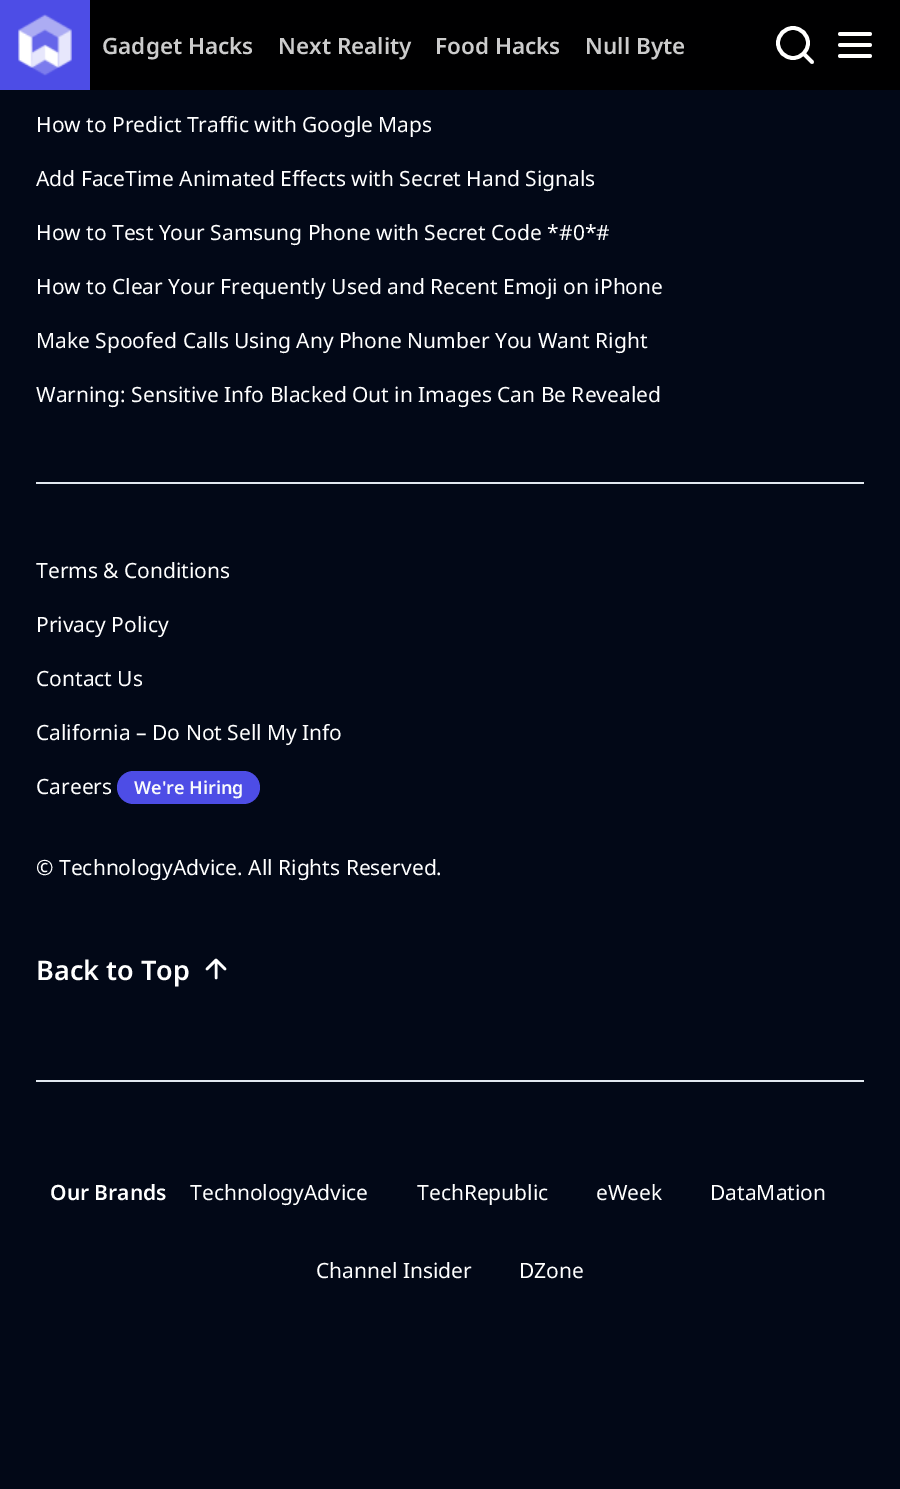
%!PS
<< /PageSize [900 1489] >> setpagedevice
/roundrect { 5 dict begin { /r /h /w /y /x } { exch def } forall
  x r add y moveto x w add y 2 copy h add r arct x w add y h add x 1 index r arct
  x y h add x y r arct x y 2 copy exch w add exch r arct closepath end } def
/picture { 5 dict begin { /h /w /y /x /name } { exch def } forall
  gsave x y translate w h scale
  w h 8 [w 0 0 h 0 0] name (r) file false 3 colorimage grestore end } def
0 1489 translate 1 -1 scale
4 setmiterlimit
0.008 0.031 0.09 setrgbcolor
0 0 900 1489 rectfill
0.302 0.302 0.902 setrgbcolor
0 0 90 90 rectfill
(img1.rgb) 18 14 54 62 picture
0 0 0.004 setrgbcolor
90 0 810 90 rectfill
/NotoSans-SemiBold [22.5 0 0 -22.5 0 0] selectfont
0.8 setgray
102 54 moveto (Gadget Hacks) show
278 54 moveto (Next Reality) show
435 54 moveto (Food Hacks) show
585 54 moveto (Null Byte) show
1 setgray
3.8 setlinewidth
newpath 793 43 15 0 360 arc closepath stroke
1 setlinecap
1 setlinejoin
newpath 812 62 moveto 804 54 lineto stroke
newpath 840 45 moveto 870 45 lineto 840 34 moveto 870 34 lineto 840 56 moveto 870 56 lineto stroke
/NotoSans-Regular [21 0 0 -21 0 0] selectfont
36 132 moveto (How to Predict Traffic with Google Maps) show
36 186 moveto (Add FaceTime Animated Effects with Secret Hand Signals) show
36 240 moveto (How to Test Your Samsung Phone with Secret Code *#0*#) show
36 294 moveto (How to Clear Your Frequently Used and Recent Emoji on iPhone) show
36 348 moveto (Make Spoofed Calls Using Any Phone Number You Want Right) show
36 402 moveto (Warning: Sensitive Info Blacked Out in Images Can Be Revealed) show
0.886 0.91 0.941 setrgbcolor
36 482 828 2 rectfill
1 setgray
36 578 moveto (Terms & Conditions) show
36 632 moveto (Privacy Policy) show
36 686 moveto (Contact Us) show
36 740 moveto (California – Do Not Sell My Info) show
36 794 moveto (Careers) show
0.302 0.302 0.902 setrgbcolor
117 771 143 33 16.5 roundrect fill
/NotoSans-SemiBold [18 0 0 -18 0 0] selectfont
0.973 0.98 0.988 setrgbcolor
134 794 moveto (We're Hiring) show
/NotoSans-Regular [21 0 0 -21 0 0] selectfont
1 setgray
36 875 moveto (© TechnologyAdvice. All Rights Reserved.) show
/NotoSans-SemiBold [27 0 0 -27 0 0] selectfont
36 980 moveto (Back to Top) show
2.5 setlinewidth
newpath 207 969 moveto 216 960 lineto 225 969 lineto 216 978 moveto 216 960 lineto stroke
0.886 0.91 0.941 setrgbcolor
36 1080 828 2 rectfill
/NotoSans-SemiBold [21 0 0 -21 0 0] selectfont
1 setgray
50 1200 moveto (Our Brands) show
/NotoSans-Regular [21 0 0 -21 0 0] selectfont
190 1200 moveto (TechnologyAdvice) show
417 1200 moveto (TechRepublic) show
596 1200 moveto (eWeek) show
710 1200 moveto (DataMation) show
316 1278 moveto (Channel Insider) show
519 1278 moveto (DZone) show
showpage
